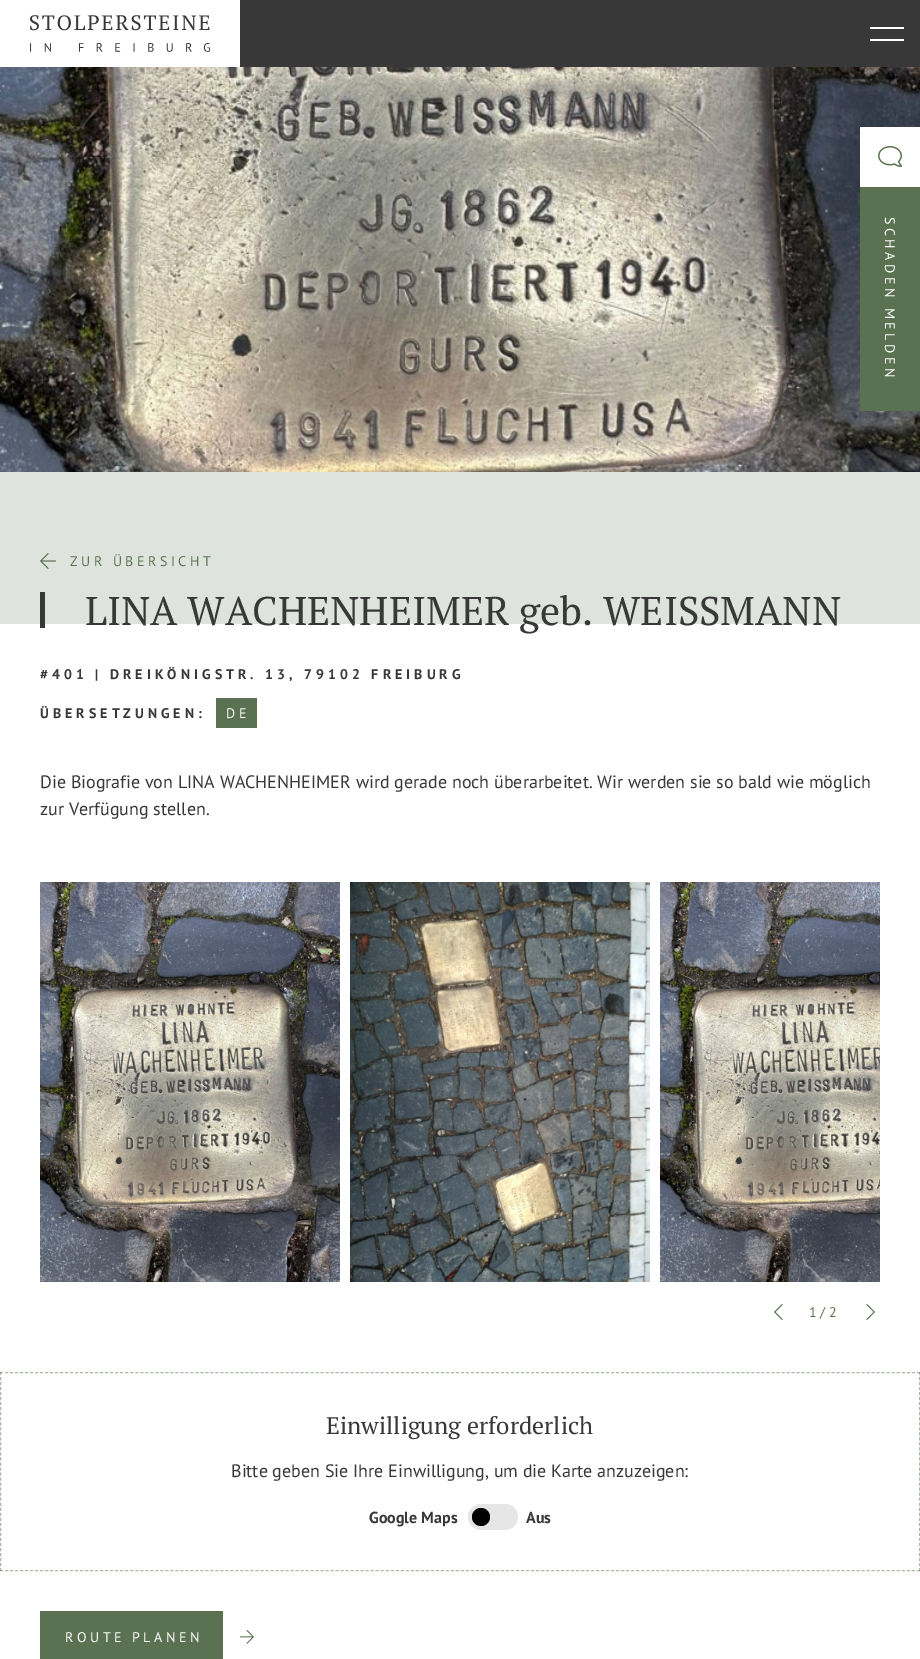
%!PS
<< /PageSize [920 1659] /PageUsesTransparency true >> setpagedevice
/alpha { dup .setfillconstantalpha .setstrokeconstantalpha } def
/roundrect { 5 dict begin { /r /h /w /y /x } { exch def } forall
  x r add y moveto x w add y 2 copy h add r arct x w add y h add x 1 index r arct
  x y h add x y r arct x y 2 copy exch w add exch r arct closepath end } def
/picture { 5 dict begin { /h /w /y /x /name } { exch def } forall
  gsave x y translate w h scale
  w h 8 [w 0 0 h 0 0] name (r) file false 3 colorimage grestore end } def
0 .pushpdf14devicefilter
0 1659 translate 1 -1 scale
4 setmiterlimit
1 setgray
0 0 920 1659 rectfill
(img3.rgb) 0 67 920 405 picture
860 127 60 60 rectfill
(img1.rgb) 878 146 24 21 picture
0.353 0.447 0.318 setrgbcolor
860 187 60 224 rectfill
/PTSans-Regular [14 0 0 -14 0 0] selectfont
1 setgray
gsave 885 217 translate 90 rotate 0 0 moveto 3.5 0 (SCHADEN MELDEN) ashow grestore
0.22 setgray
240 0 680 67 rectfill
(img2.rgb) 30 15 180 37 picture
1 setgray
870 27 34 2 rectfill
870 39 34 2 rectfill
0.875 0.89 0.867 setrgbcolor
0 472 920 152 rectfill
(img4.rgb) 40 553 16 16 picture
0.353 0.447 0.318 setrgbcolor
70 566 moveto 3.5 0 (ZUR ÜBERSICHT) ashow
0.22 setgray
40 592 5 36 rectfill
/PTSerif-Regular [40 0 0 -40 0 0] selectfont
85 625 moveto (LINA WACHENHEIMER geb. WEISSMANN) show
/PTSans-Bold [14 0 0 -14 0 0] selectfont
40 679 moveto 4 0 (#401 | DREIKÖNIGSTR. 13, 79102 FREIBURG) ashow
40 718 moveto 4 0 (ÜBERSETZUNGEN:) ashow
0.353 0.447 0.318 setrgbcolor
216 698 41 30 rectfill
/PTSans-Regular [14 0 0 -14 0 0] selectfont
1 setgray
226 718 moveto 3.5 0 (DE) ashow
/PTSans-Regular [18 0 0 -18 0 0] selectfont
0.22 setgray
40 788 moveto (Die Biografie von LINA WACHENHEIMER wird gerade noch überarbeitet. Wir werden sie so bald wie möglich) show
40 815 moveto (zur Verfügung stellen.) show
(img5.rgb) 40 882 300 400 picture
(img6.rgb) 350 882 300 400 picture
(img7.rgb) 660 882 220 400 picture
(img8.rgb) 774 1304 9 16 picture
/PTSans-Regular [14 0 0 -14 0 0] selectfont
0.353 0.447 0.318 setrgbcolor
809 1317 moveto 3.5 0 (1/2) ashow
(img9.rgb) 866 1304 9 16 picture
0.678 0.725 0.659 setrgbcolor
[3 2.01] 0 setdash
newpath 0 1372.5 moveto 920 1372.5 lineto stroke
0.5 alpha
0.353 0.447 0.318 setrgbcolor
[3 2.03] 0 setdash
newpath 919.5 1372 moveto 919.5 1571 lineto stroke
[3 2.01] 0 setdash
newpath 0 1570.5 moveto 920 1570.5 lineto stroke
[3 2.03] 0 setdash
newpath 0.5 1372 moveto 0.5 1571 lineto stroke
/PTSerif-Regular [24 0 0 -24 0 0] selectfont
1 alpha
0.22 setgray
326 1434 moveto (Einwilligung erforderlich) show
/PTSans-Regular [18 0 0 -18 0 0] selectfont
231 1477 moveto (Bitte geben Sie Ihre Einwilligung, um die Karte anzuzeigen:) show
/PTSans-Bold [16 0 0 -16 0 0] selectfont
369 1523 moveto (Google Maps) show
0.902 setgray
468 1504 50 26 13 roundrect fill
0 setgray
newpath 481 1517 9 0 360 arc closepath fill
0.22 setgray
526 1523 moveto (Aus) show
0.353 0.447 0.318 setrgbcolor
40 1611 183 48 rectfill
/PTSans-Regular [14 0 0 -14 0 0] selectfont
1 setgray
65 1642 moveto 3.5 0 (ROUTE PLANEN) ashow
(img10.rgb) 240 1630 14 14 picture
.poppdf14devicefilter showpage
